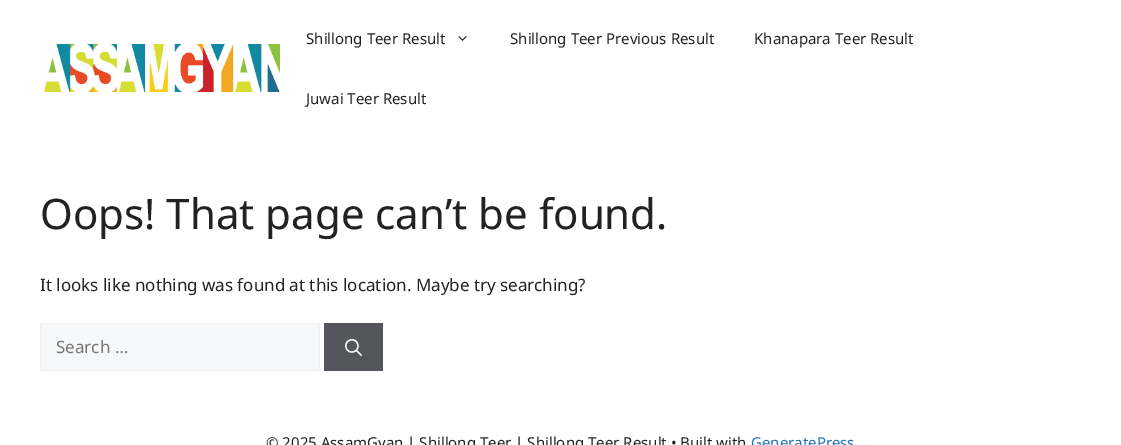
%!PS
<< /PageSize [1121 445] >> setpagedevice
/picture { 5 dict begin { /h /w /y /x /name } { exch def } forall
  gsave x y translate w h scale
  w h 8 [w 0 0 h 0 0] name (r) file false 3 colorimage grestore end } def
0 445 translate 1 -1 scale
4 setmiterlimit
1 setgray
0 0 1121 445 rectfill
(img1.rgb) 44 44 236 48 picture
/NotoSans-Regular [15 0 0 -15 0 0] selectfont
0.133 setgray
306 44 moveto (Shillong Teer Result) show
(img2.rgb) 458 36 9 5 picture
510 44 moveto (Shillong Teer Previous Result) show
754 44 moveto (Khanapara Teer Result) show
306 104 moveto (Juwai Teer Result) show
/NotoSans-Regular [42 0 0 -42 0 0] selectfont
40 229 moveto (Oops! That page can’t be found.) show
/NotoSans-Regular [17 0 0 -17 0 0] selectfont
40 291 moveto (It looks like nothing was found at this location. Maybe try searching?) show
0.969 0.973 0.976 setrgbcolor
newpath 40.5 323.5 moveto 319.5 323.5 lineto 319.5 370.5 lineto 40.5 370.5 lineto closepath gsave fill grestore
0.941 setgray
stroke
0.459 setgray
56 353 moveto (Search …) show
0.333 0.333 0.369 setrgbcolor
324 323 59 48 rectfill
(img3.rgb) 345 339 17 17 picture
/NotoSans-Regular [15 0 0 -15 0 0] selectfont
0.133 setgray
266 448 moveto (© 2025 AssamGyan | Shillong Teer | Shillong Teer Result • Built with) show
0.118 0.451 0.745 setrgbcolor
751 448 moveto (GeneratePress) show
showpage
